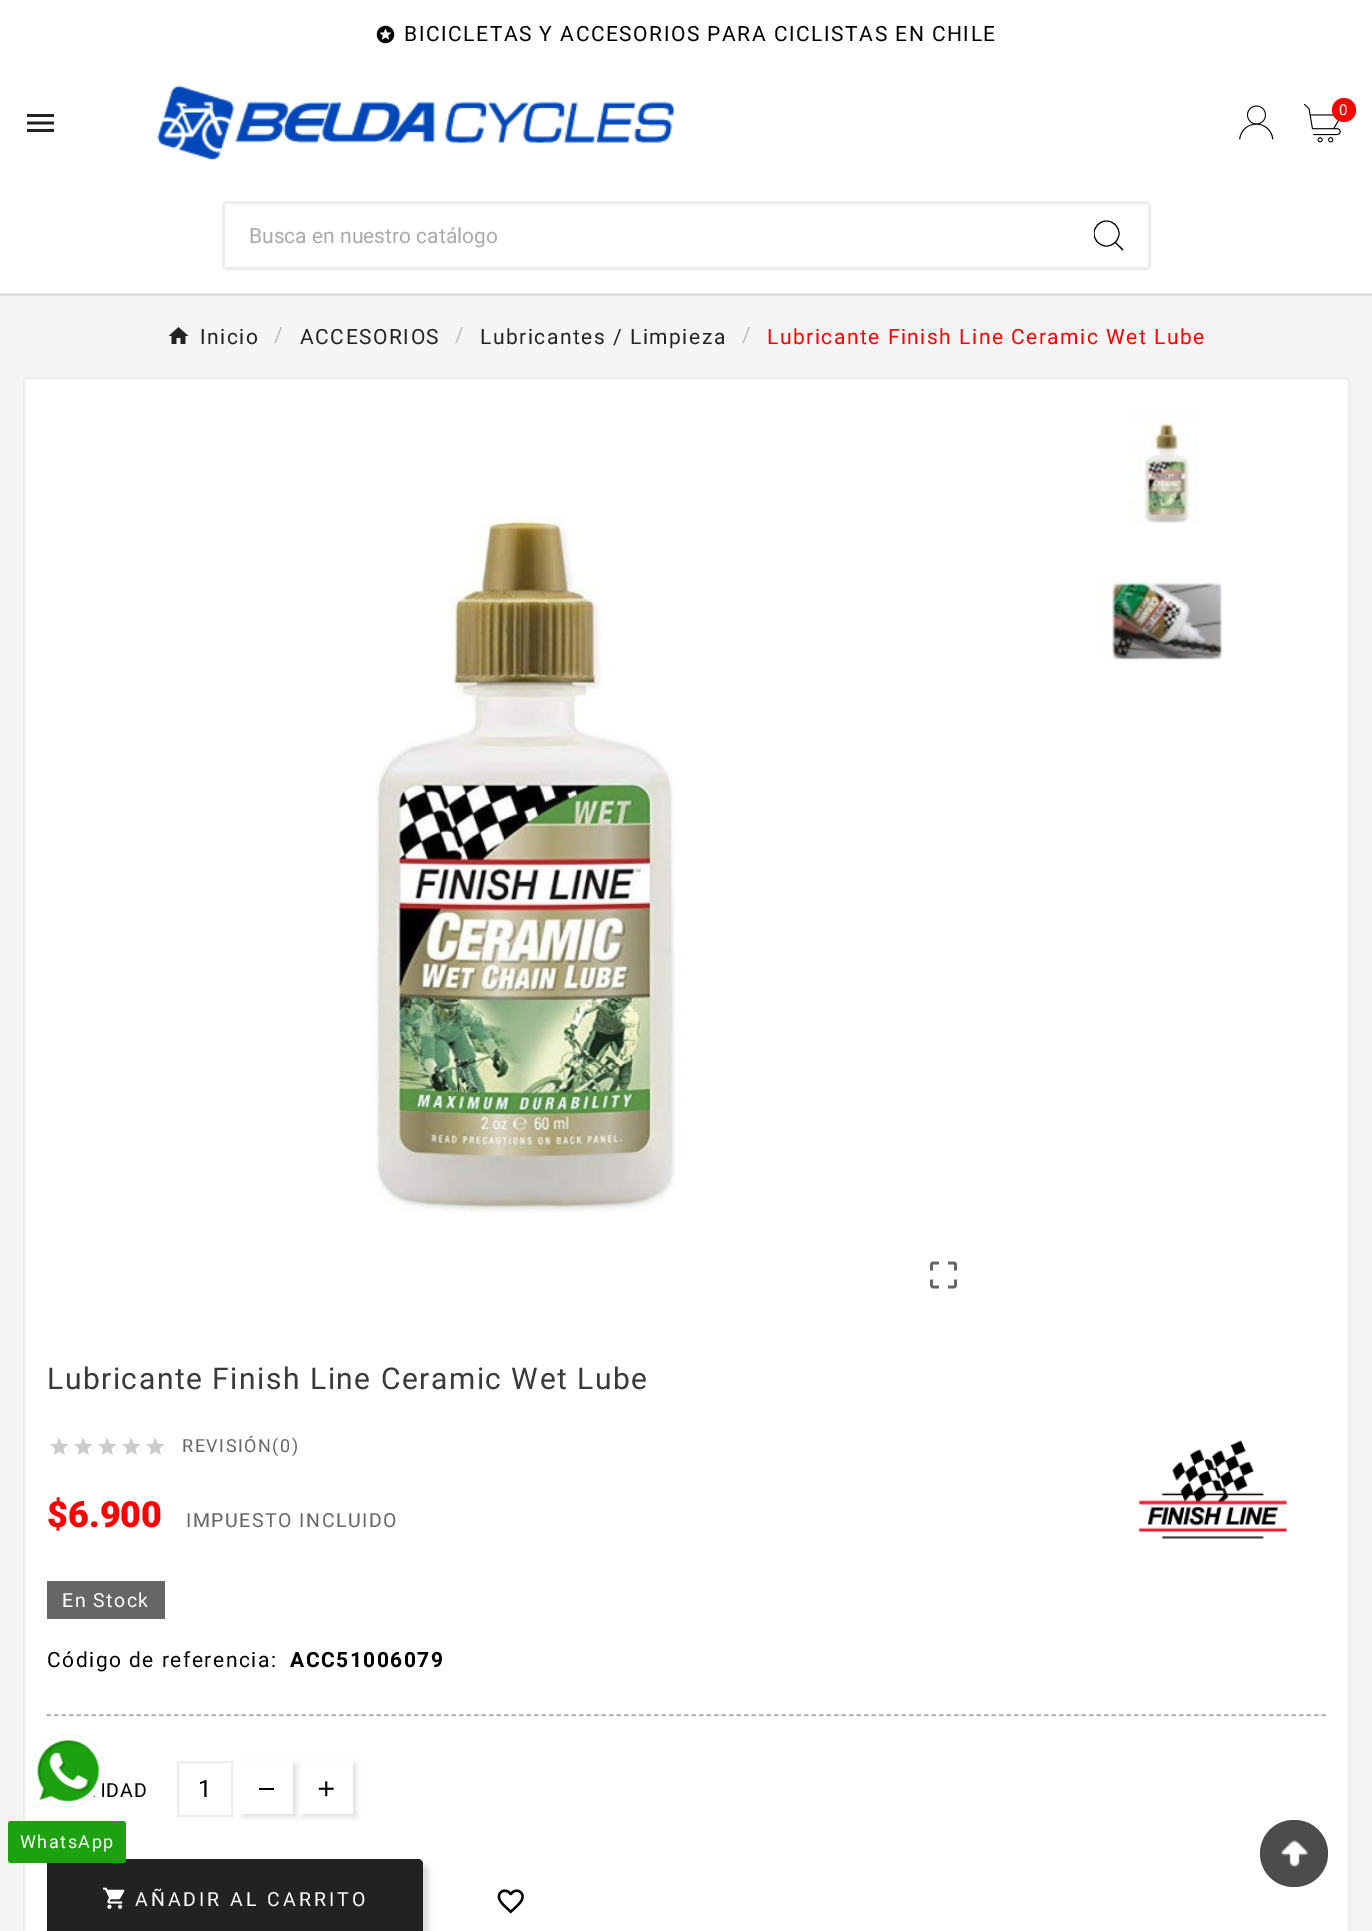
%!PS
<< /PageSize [1372 1931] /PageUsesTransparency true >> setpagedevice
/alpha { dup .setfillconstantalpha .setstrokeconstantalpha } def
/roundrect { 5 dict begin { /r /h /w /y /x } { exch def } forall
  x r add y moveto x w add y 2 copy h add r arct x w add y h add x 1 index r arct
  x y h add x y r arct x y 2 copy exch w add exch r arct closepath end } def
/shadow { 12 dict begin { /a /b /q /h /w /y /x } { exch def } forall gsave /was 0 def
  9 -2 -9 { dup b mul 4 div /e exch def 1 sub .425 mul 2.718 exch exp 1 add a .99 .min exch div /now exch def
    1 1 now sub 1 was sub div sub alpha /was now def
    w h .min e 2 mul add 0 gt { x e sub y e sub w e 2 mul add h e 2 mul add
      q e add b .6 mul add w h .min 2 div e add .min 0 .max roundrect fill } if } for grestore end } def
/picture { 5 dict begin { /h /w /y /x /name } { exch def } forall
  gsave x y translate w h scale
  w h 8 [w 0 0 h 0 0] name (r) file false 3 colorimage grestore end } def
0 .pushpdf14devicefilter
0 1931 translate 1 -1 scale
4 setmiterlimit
0.961 setgray
0 0 1372 1931 rectfill
1 setgray
0 0 1372 293 rectfill
0.929 setgray
0 293 1372 1 rectfill
0.898 setgray
0 295 1372 1 rectfill
0.835 setgray
0 294 1372 1 rectfill
(img1.rgb) 376 25 19 19 picture
/Roboto-Regular [21 0 0 -21 0 0] selectfont
0 setgray
404 41 moveto 1.5 0 (BICICLETAS Y ACCESORIOS PARA CICLISTAS EN CHILE) ashow
(img2.rgb) 157 85 517 75 picture
(img3.rgb) 1239 105 35 35 picture
(img4.rgb) 1304 104 37 39 picture
1 0 0 setrgbcolor
newpath 1344 110 12 0 360 arc closepath fill
/Roboto-Regular [15 0 0 -15 0 0] selectfont
1 setgray
1339 115 moveto 1.5 0 (0) ashow
(img5.rgb) 27 114 27 18 picture
0.929 setgray
3 setlinewidth
223.5 202.5 926 66 3.5 roundrect stroke
1 setgray
225 204 1 63 rectfill
/Roboto-Regular [21 0 0 -21 0 0] selectfont
0.667 setgray
249 243 moveto (Busca en nuestro catálogo) show
1 setgray
1147 204 1 63 rectfill
0 setgray
newpath 1122.5 250.5 moveto 1115 243 lineto 1115.5 242 lineto 1123.5 249.5 lineto closepath fill
gsave
1094 219 30 33 rectclip
1 setlinewidth
newpath 1106.5 233.5 12.5 0 360 arc closepath stroke
grestore
(img6.rgb) 168 327 21 17 picture
0.137 setgray
200 344 moveto 1.5 0 (Inicio) ashow
0.741 setgray
274 342 moveto 1.5 0 (/) ashow
0.137 setgray
300 344 moveto 1.5 0 (ACCESORIOS) ashow
0.741 setgray
455 342 moveto 1.5 0 (/) ashow
0.137 setgray
480 344 moveto 1.5 0 (Lubricantes / Limpieza) ashow
0.741 setgray
742 342 moveto 1.5 0 (/) ashow
1 0 0 setrgbcolor
767 344 moveto 1.5 0 (Lubricante Finish Line Ceramic Wet Lube) ashow
1 setgray
23 377 1327 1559 5 roundrect fill
0.07 alpha
0 setgray
2 setlinewidth
24 378 1325 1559 4 roundrect stroke
1 alpha
(img7.rgb) 374 516 302 697 picture
(img8.rgb) 930 1261 27 28 picture
(img9.rgb) 1129 409 70 115 picture
(img10.rgb) 1102 579 120 85 picture
/Roboto-Regular [30 0 0 -30 0 0] selectfont
0.227 setgray
47 1389 moveto 1.5 0 (Lubricante Finish Line Ceramic Wet Lube) ashow
(img11.rgb) 1138 1440 149 99 picture
(img12.rgb) 50 1437 19 18 picture
(img12.rgb) 74 1437 19 18 picture
(img12.rgb) 98 1437 19 18 picture
(img12.rgb) 122 1437 19 18 picture
(img12.rgb) 146 1437 19 18 picture
/Roboto-Regular [18 0 0 -18 0 0] selectfont
0.4 setgray
182 1452 moveto 1.5 0 (REVISIÓN\(0\)) ashow
/Roboto-Black [36 0 0 -36 0 0] selectfont
1 0 0 setrgbcolor
47 1527 moveto ($6.900) show
/Roboto-Regular [19.5 0 0 -19.5 0 0] selectfont
0.4 setgray
186 1527 moveto 1.5 0 (IMPUESTO INCLUIDO) ashow
47 1581 118 38 rectfill
1 setgray
62 1607 moveto 1.5 0 (En Stock) ashow
/Roboto-Regular [21 0 0 -21 0 0] selectfont
0 setgray
47 1667 moveto 1.5 0 (Código de referencia:) ashow
/Roboto-Bold [21 0 0 -21 0 0] selectfont
290 1667 moveto 1.5 0 (ACC51006079) ashow
0.655 setgray
1.5 setlinewidth
[4.5 3] 0 setdash
newpath 46.5 1715 moveto 1326 1715 lineto stroke
/Roboto-Regular [19.5 0 0 -19.5 0 0] selectfont
0 setgray
100 1797 moveto 1 0 (IDAD) ashow
0.929 setgray
2 setlinewidth
[] 0 setdash
178 1762 54 54 rectstroke
/Roboto-Regular [24 0 0 -24 0 0] selectfont
0 setgray
198 1797 moveto (1) show
303 1764 53 53 0 3 0.14 shadow
1 setgray
300 1761 53 53 rectfill
0 setgray
243 1764 53 53 0 3 0.14 shadow
1 setgray
240 1761 53 53 rectfill
0 setgray
259 1788 15 2 rectfill
(img13.rgb) 318 1781 16 16 picture
53 1865 376 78 5 3 0.14 shadow
0.133 setgray
47 1859 376 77 5 roundrect fill
(img14.rgb) 103 1887 22 22 picture
/Roboto-Regular [19.5 0 0 -19.5 0 0] selectfont
1 setgray
135 1906 moveto 3 0 (AÑADIR AL CARRITO) ashow
(img15.rgb) 497 1889 27 25 picture
(img16.rgb) 29 1734 76 75 picture
0.114 0.631 0.063 setrgbcolor
8 1821 118 42 3 roundrect fill
/Roboto-Regular [18 0 0 -18 0 0] selectfont
1 setgray
20 1848 moveto 1.5 0 (WhatsApp) ashow
0.298 setgray
1260 1820 68 67 33.5 roundrect fill
(img17.rgb) 1280 1840 29 27 picture
.poppdf14devicefilter showpage
